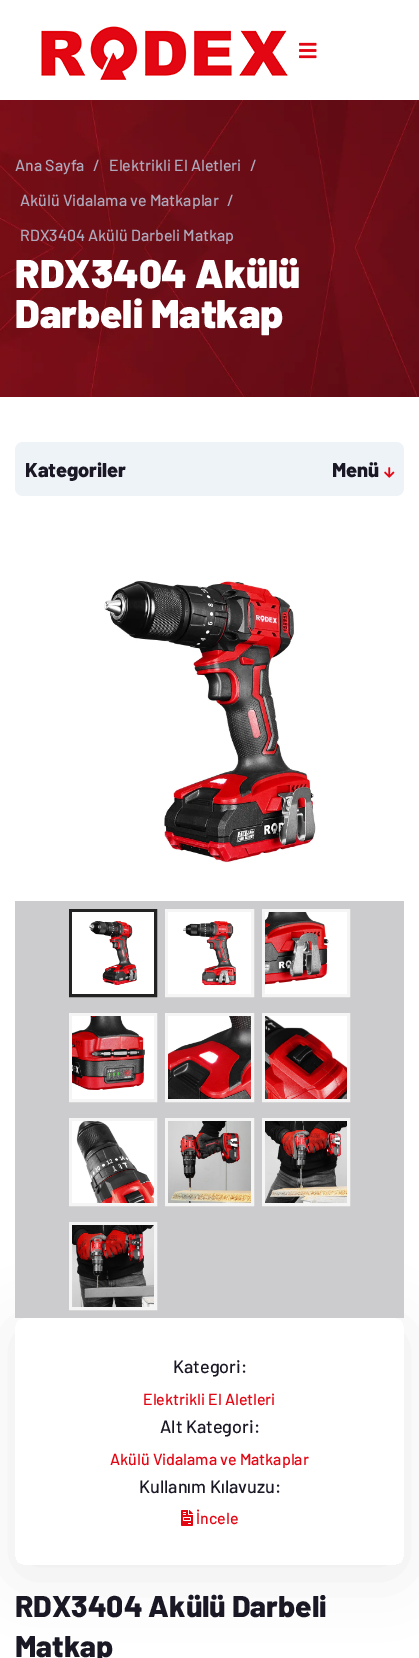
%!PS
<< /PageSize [419 1658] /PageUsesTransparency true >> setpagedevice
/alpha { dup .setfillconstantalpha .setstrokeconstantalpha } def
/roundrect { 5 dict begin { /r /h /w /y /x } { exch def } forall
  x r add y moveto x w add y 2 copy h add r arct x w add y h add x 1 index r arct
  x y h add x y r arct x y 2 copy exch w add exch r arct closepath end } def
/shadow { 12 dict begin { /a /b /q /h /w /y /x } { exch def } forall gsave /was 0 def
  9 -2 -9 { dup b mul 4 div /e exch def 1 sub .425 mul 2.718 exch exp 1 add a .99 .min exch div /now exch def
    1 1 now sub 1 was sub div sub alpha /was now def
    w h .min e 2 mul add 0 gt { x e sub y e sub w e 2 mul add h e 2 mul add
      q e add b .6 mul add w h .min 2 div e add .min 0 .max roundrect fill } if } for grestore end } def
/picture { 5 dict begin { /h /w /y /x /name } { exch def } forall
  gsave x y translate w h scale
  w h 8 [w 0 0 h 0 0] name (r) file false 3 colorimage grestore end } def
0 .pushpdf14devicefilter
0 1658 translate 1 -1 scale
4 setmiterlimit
1 setgray
0 0 419 1658 rectfill
(img1.rgb) 41 26 247 55 picture
(img2.rgb) 299 42 18 17 picture
(img3.rgb) 0 100 419 297 picture
/Barlow-Medium [16 0 0 -16 0 0] selectfont
0.678 0.659 0.729 setrgbcolor
15 171 moveto (Ana Sayfa) show
93 171 moveto (/) show
109 171 moveto (Elektrikli El Aletleri) show
250 171 moveto (/) show
20 206 moveto (Akülü Vidalama ve Matkaplar) show
227 206 moveto (/) show
20 241 moveto (RDX3404 Akülü Darbeli Matkap) show
/Barlow-Black [40 0 0 -40 0 0] selectfont
1 setgray
15 288 moveto (RDX3404 Akülü) show
15 328 moveto (Darbeli Matkap) show
0.933 0.953 0.969 setrgbcolor
15 442 389 54 8 roundrect fill
/Barlow-ExtraBold [20 0 0 -20 0 0] selectfont
0.106 0.094 0.145 setrgbcolor
25 477 moveto (Kategoriler) show
332 477 moveto (Menü) show
(img4.rgb) 384 467 11 11 picture
(img5.rgb) 104 580 212 283 picture
gsave
newpath 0 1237 moveto 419 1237 lineto 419 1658 lineto 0 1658 lineto closepath 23 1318 moveto 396 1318 lineto 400.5 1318 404 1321.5 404 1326 curveto 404 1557 lineto 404 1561.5 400.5 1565 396 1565 curveto 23 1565 lineto 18.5 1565 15 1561.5 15 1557 curveto 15 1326 lineto 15 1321.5 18.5 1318 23 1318 curveto closepath eoclip newpath
0 setgray
15 1328 389 247 8 30 0.07 shadow
grestore
0.8 0.8 0.808 setrgbcolor
15 901 389 417 rectfill
0.133 setgray
3 setlinewidth
70.5 910.5 85 85 rectstroke
(img6.rgb) 72 912 82 82 picture
0.961 setgray
166.5 910.5 86 85 rectstroke
(img7.rgb) 168 912 83 82 picture
263.5 910.5 85 85 rectstroke
(img8.rgb) 265 912 82 82 picture
70.5 1014.5 85 86 rectstroke
(img9.rgb) 72 1016 82 83 picture
166.5 1014.5 86 86 rectstroke
(img10.rgb) 168 1016 83 83 picture
263.5 1014.5 85 86 rectstroke
(img11.rgb) 265 1016 82 83 picture
70.5 1119.5 85 85 rectstroke
(img12.rgb) 72 1121 82 82 picture
166.5 1119.5 86 85 rectstroke
(img13.rgb) 168 1121 83 82 picture
263.5 1119.5 85 85 rectstroke
(img14.rgb) 265 1121 82 82 picture
70.5 1223.5 85 85 rectstroke
(img15.rgb) 72 1225 82 82 picture
/Barlow-Medium [18 0 0 -18 0 0] selectfont
0.106 0.094 0.145 setrgbcolor
173 1373 moveto (Kategori:) show
/Barlow-Medium [16 0 0 -16 0 0] selectfont
0.89 0.024 0.075 setrgbcolor
143 1405 moveto (Elektrikli El Aletleri) show
/Barlow-Medium [18 0 0 -18 0 0] selectfont
0.106 0.094 0.145 setrgbcolor
160 1433 moveto (Alt Kategori:) show
/Barlow-Medium [16 0 0 -16 0 0] selectfont
0.89 0.024 0.075 setrgbcolor
110 1465 moveto (Akülü Vidalama ve Matkaplar) show
/Barlow-Medium [18 0 0 -18 0 0] selectfont
0.106 0.094 0.145 setrgbcolor
139 1493 moveto (Kullanım Kılavuzu:) show
(img16.rgb) 181 1510 12 16 picture
/Barlow-Medium [16 0 0 -16 0 0] selectfont
0.89 0.024 0.075 setrgbcolor
196 1524 moveto (İncele) show
/Barlow-ExtraBold [30 0 0 -30 0 0] selectfont
0.106 0.094 0.145 setrgbcolor
15 1617 moveto (RDX3404 Akülü Darbeli) show
15 1657 moveto (Matkap) show
.poppdf14devicefilter showpage
